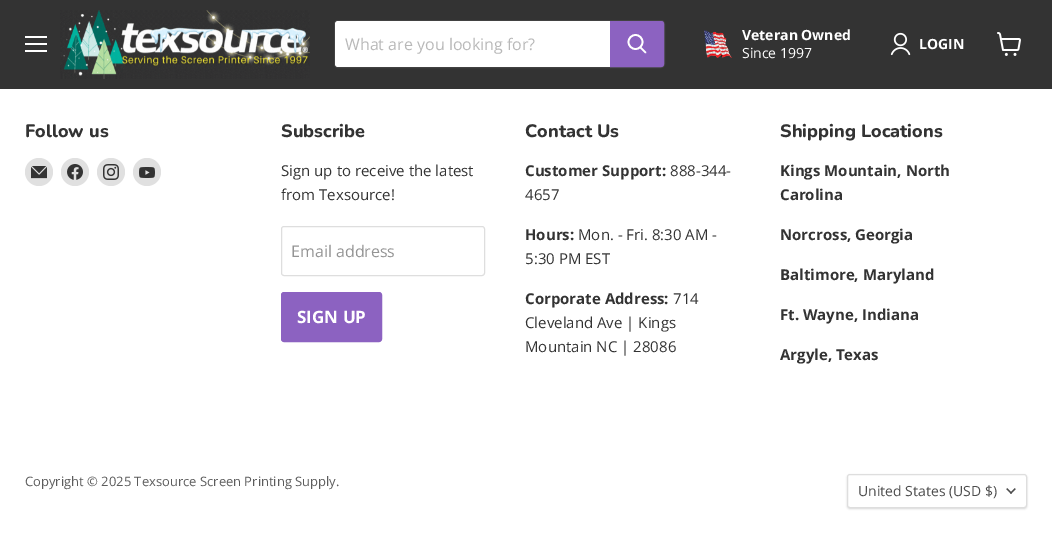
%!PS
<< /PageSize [1052 558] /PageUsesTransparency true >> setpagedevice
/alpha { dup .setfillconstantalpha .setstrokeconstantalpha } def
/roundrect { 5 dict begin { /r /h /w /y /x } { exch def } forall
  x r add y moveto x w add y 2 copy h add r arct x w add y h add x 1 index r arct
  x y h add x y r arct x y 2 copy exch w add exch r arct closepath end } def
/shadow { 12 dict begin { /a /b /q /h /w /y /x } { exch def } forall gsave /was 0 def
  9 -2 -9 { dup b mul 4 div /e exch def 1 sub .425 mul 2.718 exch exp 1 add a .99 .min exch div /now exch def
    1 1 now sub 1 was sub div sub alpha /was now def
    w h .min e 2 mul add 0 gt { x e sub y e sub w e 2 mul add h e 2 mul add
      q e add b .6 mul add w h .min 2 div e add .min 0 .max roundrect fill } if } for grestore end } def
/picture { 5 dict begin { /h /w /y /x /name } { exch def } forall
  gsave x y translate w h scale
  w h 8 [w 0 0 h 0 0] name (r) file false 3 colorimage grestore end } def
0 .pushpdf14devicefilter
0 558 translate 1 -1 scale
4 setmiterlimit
1 setgray
0 0 1052 558 rectfill
0.2 setgray
0 0 1052 89 rectfill
1 setgray
25 36 22 2 rectfill
25 43 22 2 rectfill
25 50 22 2 rectfill
(img1.rgb) 60 10 250 69 picture
0.259 setgray
334.5 20.5 330 47 3.5 roundrect stroke
1 setgray
newpath 338 21 moveto 610 21 lineto 610 67 lineto 338 67 lineto 336.5 67 335 65.5 335 64 curveto 335 24 lineto 335 22.5 336.5 21 338 21 curveto closepath fill
/OpenSans-Regular [16 0 0 -16 0 0] selectfont
0.722 setgray
345 50 moveto (What are you looking for?) show
0.549 0.384 0.757 setrgbcolor
newpath 610.5 21.5 moveto 661 21.5 lineto 662.5 21.5 663.5 22.5 663.5 24 curveto 663.5 64 lineto 663.5 65.5 662.5 66.5 661 66.5 curveto 610.5 66.5 lineto closepath gsave fill grestore
stroke
1 setgray
1.7 setlinewidth
1 setlinecap
newpath 645.5 52.5 moveto 640.5 47.5 lineto stroke
0 setlinecap
newpath 635.5 42 7 0 360 arc closepath stroke
(img2.rgb) 704 30 28 28 picture
/OpenSans-Bold [14 0 0 -14 0 0] selectfont
742 40 moveto (Veteran Owned) show
/OpenSans-Regular [14 0 0 -14 0 0] selectfont
742 58 moveto (Since 1997) show
(img3.rgb) 890 32 21 24 picture
/OpenSans-Bold [14 0 0 -14 0 0] selectfont
919 49 moveto (LOGIN) show
(img4.rgb) 997 32 24 24 picture
/Nunito-ExtraBold [18 0 0 -18 0 0] selectfont
0.2 setgray
25 137 moveto (Follow us) show
0.878 setgray
newpath 39 172 14 0 360 arc closepath fill
(img5.rgb) 31 166 16 13 picture
newpath 75 172 14 0 360 arc closepath fill
(img6.rgb) 67 164 16 16 picture
newpath 111 172 14 0 360 arc closepath fill
(img7.rgb) 103 164 16 16 picture
newpath 147 172 14 0 360 arc closepath fill
(img8.rgb) 139 167 16 11 picture
0.2 setgray
281 137 moveto (Subscribe) show
/OpenSans-Regular [15 0 0 -15 0 0] selectfont
281 176 moveto (Sign up to receive the latest) show
281 200 moveto (from Texsource!) show
0.871 setgray
1 setlinewidth
281.5 226.5 203 49 2.5 roundrect stroke
/OpenSans-Regular [16 0 0 -16 0 0] selectfont
0.58 setgray
291 257 moveto (Email address) show
0.549 0.384 0.757 setrgbcolor
281.5 292.5 100 49 2.5 roundrect gsave fill grestore
stroke
/OpenSans-Bold [17 0 0 -17 0 0] selectfont
1 setgray
297 323 moveto (SIGN UP) show
/Nunito-ExtraBold [18 0 0 -18 0 0] selectfont
0.2 setgray
525 137 moveto (Contact Us) show
/OpenSans-Bold [15 0 0 -15 0 0] selectfont
525 176 moveto (Customer Support:) show
/OpenSans-Regular [15 0 0 -15 0 0] selectfont
670 176 moveto (888-344-) show
525 200 moveto (4657) show
/OpenSans-Bold [15 0 0 -15 0 0] selectfont
525 240 moveto (Hours:) show
/OpenSans-Regular [15 0 0 -15 0 0] selectfont
578 240 moveto (Mon. - Fri. 8:30 AM -) show
525 264 moveto (5:30 PM EST) show
/OpenSans-Bold [15 0 0 -15 0 0] selectfont
525 304 moveto (Corporate Address:) show
/OpenSans-Regular [15 0 0 -15 0 0] selectfont
673 304 moveto (714) show
525 328 moveto (Cleveland Ave | Kings) show
525 352 moveto (Mountain NC | 28086) show
/Nunito-ExtraBold [18 0 0 -18 0 0] selectfont
780 137 moveto (Shipping Locations) show
/OpenSans-Bold [15 0 0 -15 0 0] selectfont
780 176 moveto (Kings Mountain, North) show
780 200 moveto (Carolina) show
780 240 moveto (Norcross, Georgia) show
780 280 moveto (Baltimore, Maryland) show
780 320 moveto (Ft. Wayne, Indiana) show
780 360 moveto (Argyle, Texas) show
/OpenSans-Regular [13 0 0 -13 0 0] selectfont
0.361 setgray
25 486 moveto (Copyright © 2025 Texsource Screen Printing Supply.) show
0 setgray
847 475 180 34 3 1 0.15 shadow
1 setgray
847.5 474.5 179 33 2.5 roundrect gsave fill grestore
0.871 setgray
stroke
/OpenSans-Regular [14 0 0 -14 0 0] selectfont
0.302 setgray
858 496 moveto (United States \(USD $\)) show
(img9.rgb) 1006 488 10 6 picture
.poppdf14devicefilter showpage
